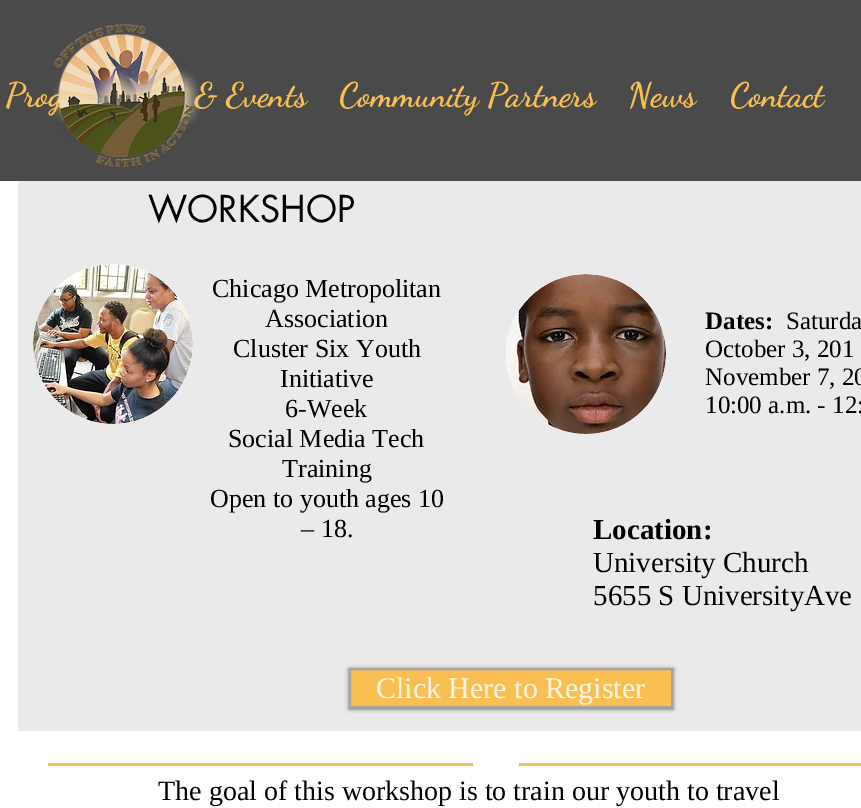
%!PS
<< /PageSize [861 808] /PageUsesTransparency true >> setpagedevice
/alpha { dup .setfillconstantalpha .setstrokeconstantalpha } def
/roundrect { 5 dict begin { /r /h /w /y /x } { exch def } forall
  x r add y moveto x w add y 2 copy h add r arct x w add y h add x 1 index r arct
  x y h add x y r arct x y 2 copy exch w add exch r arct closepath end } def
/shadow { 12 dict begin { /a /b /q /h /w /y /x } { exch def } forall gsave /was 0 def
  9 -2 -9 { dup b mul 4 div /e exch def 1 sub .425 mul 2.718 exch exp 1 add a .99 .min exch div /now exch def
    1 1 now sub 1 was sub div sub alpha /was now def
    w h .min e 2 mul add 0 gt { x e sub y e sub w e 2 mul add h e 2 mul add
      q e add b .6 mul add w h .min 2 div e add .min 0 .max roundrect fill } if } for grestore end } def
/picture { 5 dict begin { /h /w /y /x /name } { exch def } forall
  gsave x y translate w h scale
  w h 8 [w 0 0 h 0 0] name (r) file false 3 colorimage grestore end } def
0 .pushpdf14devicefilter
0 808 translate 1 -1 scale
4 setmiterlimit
1 setgray
0 0 861 808 rectfill
0.29 setgray
0 0 861 181 rectfill
/DancingScript-Bold [34 0 0 -34 0 0] selectfont
0.976 0.749 0.318 setrgbcolor
5 106 moveto (Prog) show
194 106 moveto (& Events) show
(img1.rgb) 52 23 149 145 picture
339 106 moveto (Community Partners) show
628 106 moveto (News) show
730 106 moveto (Contact) show
0.918 setgray
18 181 843 550 rectfill
/futura-Regular [36 0 0 -36 0 0] selectfont
0 setgray
148 222 moveto (WORKSHOP) show
1 setgray
newpath 113 344 80 0 360 arc closepath fill
(img2.rgb) 33 264 160 160 picture
/LiberationSerif-Regular [26 0 0 -26 0 0] selectfont
0 setgray
212 297 moveto (Chicago Metropolitan) show
265 327 moveto (Association) show
233 357 moveto (Cluster Six Youth) show
280 387 moveto (Initiative) show
285 417 moveto (6-Week) show
228 447 moveto (Social Media Tech) show
282 477 moveto (Training) show
210 507 moveto (Open to youth ages 10) show
301 537 moveto (– 18.) show
1 setgray
newpath 586 354 80 0 360 arc closepath fill
(img3.rgb) 506 274 160 160 picture
/LiberationSerif-Bold [25 0 0 -25 0 0] selectfont
0 setgray
705 329 moveto (Dates:) show
/LiberationSerif-Regular [25 0 0 -25 0 0] selectfont
786 329 moveto (Saturda) show
705 357 moveto (October 3, 201) show
705 385 moveto (November 7, 20) show
705 413 moveto (10:00 a.m. - 12:) show
/LiberationSerif-Bold [29 0 0 -29 0 0] selectfont
593 539 moveto (Location:) show
/LiberationSerif-Regular [29 0 0 -29 0 0] selectfont
593 572 moveto (University Church) show
593 605 moveto (5655 S UniversityAve) show
349 669 324 40 0 2 0.6 shadow
0.976 0.749 0.325 setrgbcolor
newpath 350 669 moveto 672 669 lineto 672 707 lineto 350 707 lineto closepath gsave fill grestore
0.643 setgray
2 setlinewidth
stroke
/LiberationSerif-Regular [30 0 0 -30 0 0] selectfont
1 0.965 0.898 setrgbcolor
376 698 moveto (Click Here to Register) show
0.976 0.749 0.318 setrgbcolor
48 763 425 3 rectfill
519 763 342 3 rectfill
/LiberationSerif-Regular [28 0 0 -28 0 0] selectfont
0 setgray
158 800 moveto (The goal of this workshop is to train our youth to travel) show
.poppdf14devicefilter showpage
